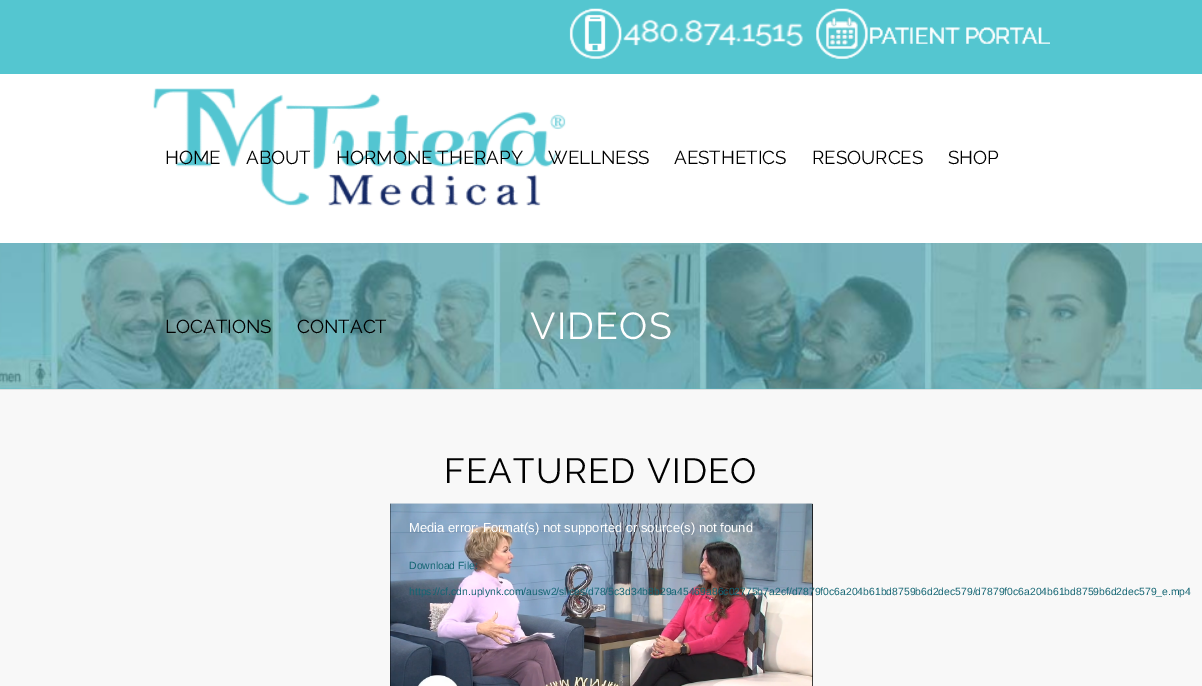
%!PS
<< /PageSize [1202 686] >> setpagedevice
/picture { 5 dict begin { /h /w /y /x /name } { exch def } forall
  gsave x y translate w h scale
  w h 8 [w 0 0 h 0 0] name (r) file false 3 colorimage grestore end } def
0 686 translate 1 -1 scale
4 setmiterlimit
1 setgray
0 0 1202 686 rectfill
0.329 0.776 0.816 setrgbcolor
0 0 1202 74 rectfill
(img1.rgb) 569 8 234 51 picture
(img2.rgb) 816 8 234 51 picture
(img3.rgb) 153 88 413 118 picture
/Raleway-Thin [18.75 0 0 -18.75 0 0] selectfont
0 setgray
165 164 moveto (HOME) show
246 164 moveto (ABOUT) show
336 164 moveto (HORMONE THERAPY) show
548 164 moveto (WELLNESS) show
674 164 moveto (AESTHETICS) show
812 164 moveto (RESOURCES) show
948 164 moveto (SHOP) show
(img4.rgb) 0 243 1202 146 picture
165 333 moveto (LOCATIONS) show
297 333 moveto (CONTACT) show
/Raleway-Thin [37.5 0 0 -37.5 0 0] selectfont
1 setgray
530 339 moveto 1.25 0 (VIDEOS) ashow
0.973 setgray
0 390 1202 296 rectfill
0.882 setgray
0 389 1202 1 rectfill
/Raleway-Thin [35 0 0 -35 0 0] selectfont
0 setgray
444 483 moveto 1.25 0 (FEATURED VIDEO) ashow
(img5.rgb) 390 503 423 1 picture
812 504 1 182 rectfill
(img6.rgb) 390 503 421 1 picture
(img7.rgb) 390 503 423 183 picture
/LiberationSans-Regular [13 0 0 -13 0 0] selectfont
1 setgray
409 532 moveto (Media error: Format\(s\) not supported or source\(s\) not found) show
/LiberationSans-Regular [10.4 0 0 -10.4 0 0] selectfont
0.075 0.396 0.451 setrgbcolor
409 569 moveto (Download File:) show
409 595 moveto (https://cf.cdn.uplynk.com/ausw2/slices/d78/5c3d34b8b29a45469a86c02775b7a2cf/d7879f0c6a204b61bd8759b6d2dec579/d7879f0c6a204b61bd8759b6d2dec579_e.mp4) show
showpage
